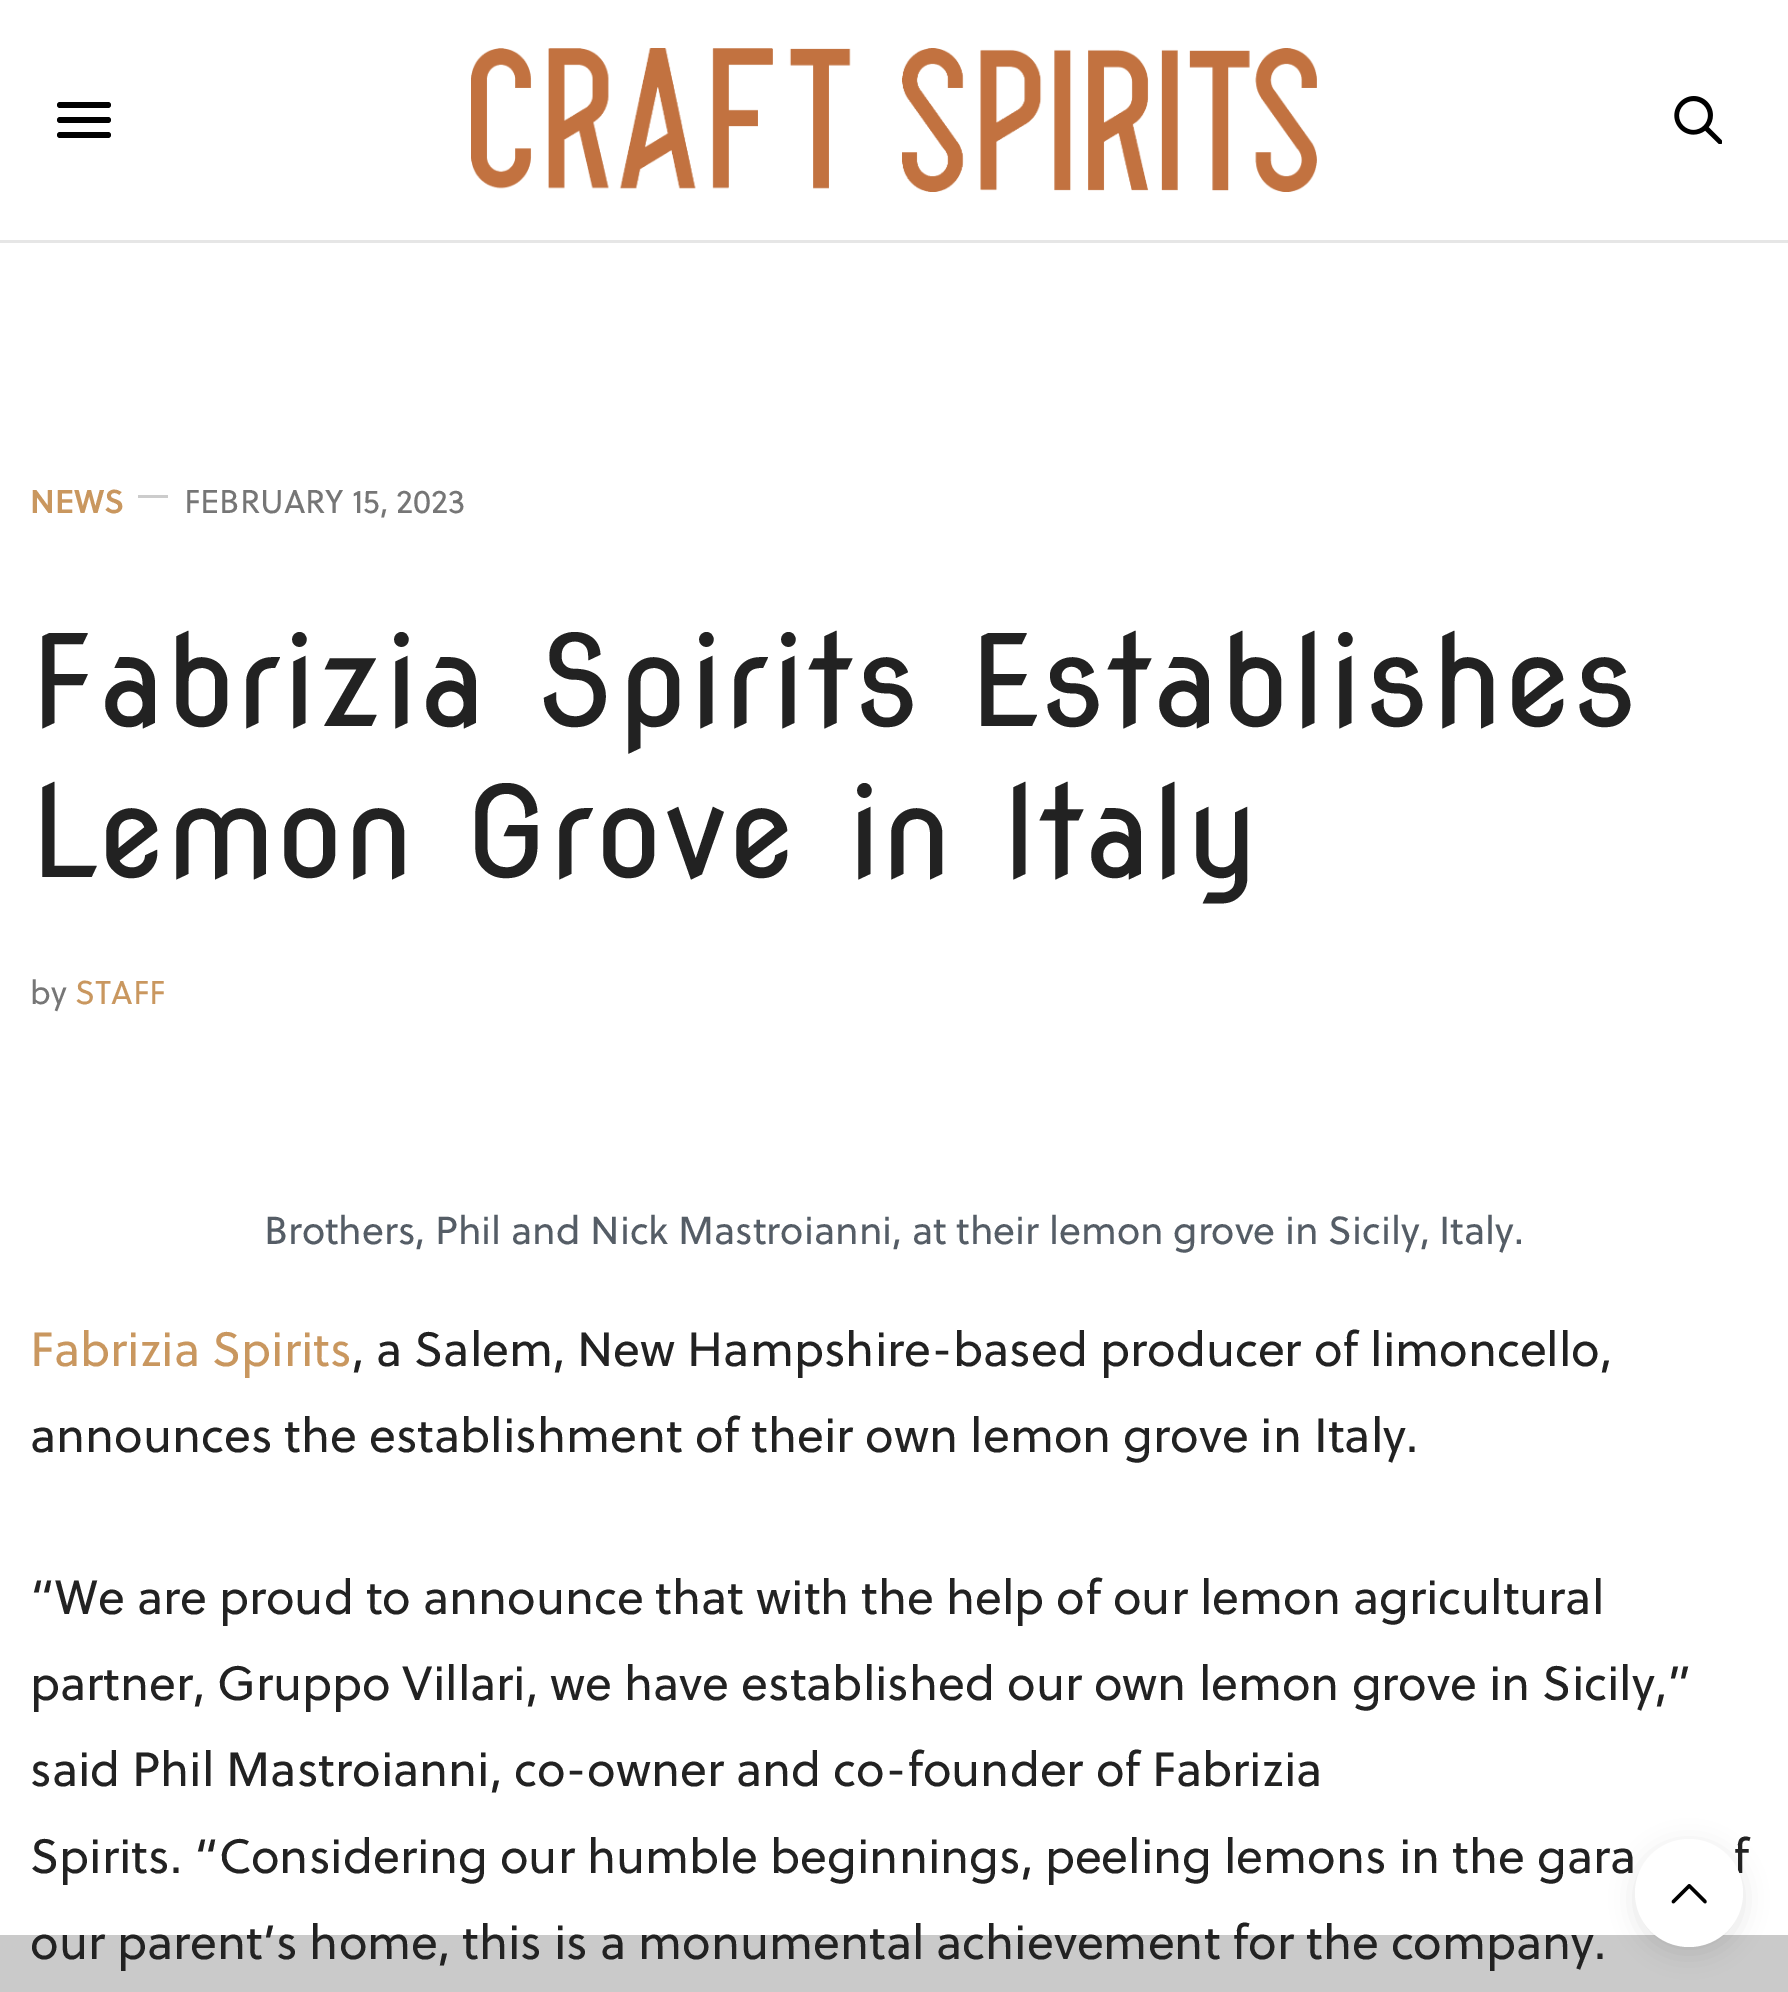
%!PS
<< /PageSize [1788 1992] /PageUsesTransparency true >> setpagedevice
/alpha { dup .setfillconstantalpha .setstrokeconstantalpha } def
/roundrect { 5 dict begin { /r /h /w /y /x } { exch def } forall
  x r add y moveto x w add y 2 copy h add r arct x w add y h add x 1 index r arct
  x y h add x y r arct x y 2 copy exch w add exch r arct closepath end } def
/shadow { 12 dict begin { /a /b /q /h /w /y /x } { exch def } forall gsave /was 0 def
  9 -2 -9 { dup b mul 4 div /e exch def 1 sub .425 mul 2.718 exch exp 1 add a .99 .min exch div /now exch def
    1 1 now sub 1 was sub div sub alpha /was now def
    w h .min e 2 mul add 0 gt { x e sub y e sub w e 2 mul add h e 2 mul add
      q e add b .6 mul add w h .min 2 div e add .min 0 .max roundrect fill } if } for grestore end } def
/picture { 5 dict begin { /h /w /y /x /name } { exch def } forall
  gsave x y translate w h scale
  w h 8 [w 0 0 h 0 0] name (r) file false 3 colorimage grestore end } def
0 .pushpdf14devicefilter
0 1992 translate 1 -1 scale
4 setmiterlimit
1 setgray
0 0 1788 1992 rectfill
0.902 setgray
0 240 1788 3 rectfill
0 setgray
57 102 54 6 3 roundrect fill
57 117 54 6 3 roundrect fill
57 132 54 6 3 roundrect fill
(img1.rgb) 471 48 846 144 picture
(img2.rgb) 1674 96 48 48 picture
/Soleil-SemiBold [33 0 0 -33 0 0] selectfont
0.788 0.592 0.373 setrgbcolor
30 513 moveto (NEWS) show
0.8 setgray
138 495 30 3 rectfill
/Soleil-Regular [33 0 0 -33 0 0] selectfont
0.463 setgray
184 513 moveto (FEBRUARY 15, 2023) show
/NovaRound-Regular [126 0 0 -126 0 0] selectfont
0.133 setgray
30 726 moveto (Fabrizia Spirits Establishes) show
30 877 moveto (Lemon Grove in Italy) show
/Soleil-Regular [33 0 0 -33 0 0] selectfont
0.463 setgray
30 1004 moveto (by) show
0.788 0.592 0.373 setrgbcolor
75 1004 moveto (STAFF) show
/Soleil-Regular [39 0 0 -39 0 0] selectfont
0.333 0.365 0.4 setrgbcolor
264 1244 moveto (Brothers, Phil and Nick Mastroianni, at their lemon grove in Sicily, Italy.) show
/Soleil-Regular [48 0 0 -48 0 0] selectfont
0.788 0.592 0.373 setrgbcolor
30 1366 moveto (Fabrizia Spirits) show
0.133 setgray
352 1366 moveto (, a Salem, New Hampshire-based producer of limoncello,) show
30 1452 moveto (announces the establishment of their own lemon grove in Italy.) show
30 1614 moveto (“We are proud to announce that with the help of our lemon agricultural) show
30 1700 moveto (partner, Gruppo Villari, we have established our own lemon grove in Sicily,”) show
30 1786 moveto (said Phil Mastroianni, co-owner and co-founder of Fabrizia) show
30 1873 moveto (Spirits. “Considering our humble beginnings, peeling lemons in the gara) show
1733 1873 moveto (f) show
30 1959 moveto (our parent’s home, this is a monumental achievement for the company.) show
0.24 alpha
0 1935 1788 57 rectfill
1 alpha
0 setgray
1635 1845 108 108 54 12 0.1 shadow
1 setgray
newpath 1689 1893 54 0 360 arc closepath fill
(img3.rgb) 1671 1884 36 20 picture
.poppdf14devicefilter showpage
